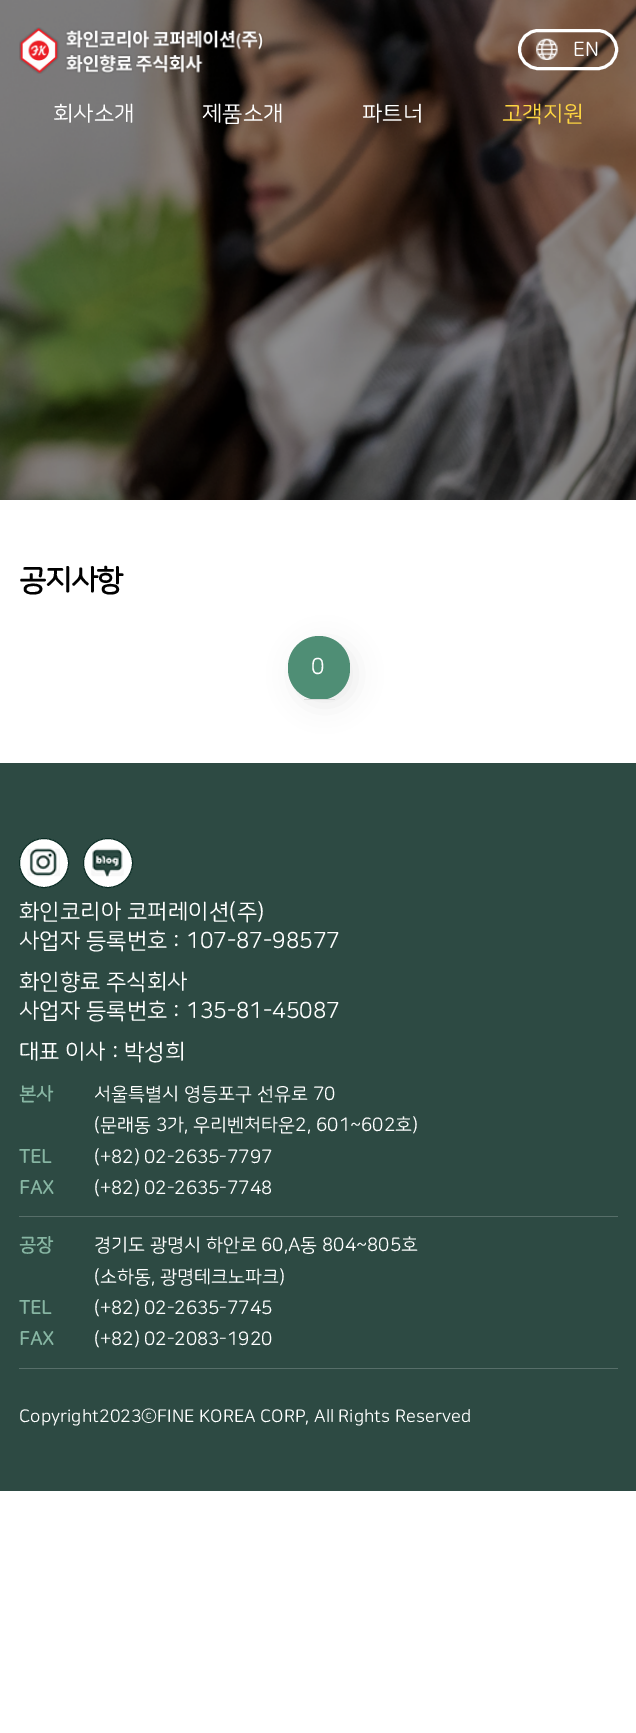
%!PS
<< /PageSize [636 1733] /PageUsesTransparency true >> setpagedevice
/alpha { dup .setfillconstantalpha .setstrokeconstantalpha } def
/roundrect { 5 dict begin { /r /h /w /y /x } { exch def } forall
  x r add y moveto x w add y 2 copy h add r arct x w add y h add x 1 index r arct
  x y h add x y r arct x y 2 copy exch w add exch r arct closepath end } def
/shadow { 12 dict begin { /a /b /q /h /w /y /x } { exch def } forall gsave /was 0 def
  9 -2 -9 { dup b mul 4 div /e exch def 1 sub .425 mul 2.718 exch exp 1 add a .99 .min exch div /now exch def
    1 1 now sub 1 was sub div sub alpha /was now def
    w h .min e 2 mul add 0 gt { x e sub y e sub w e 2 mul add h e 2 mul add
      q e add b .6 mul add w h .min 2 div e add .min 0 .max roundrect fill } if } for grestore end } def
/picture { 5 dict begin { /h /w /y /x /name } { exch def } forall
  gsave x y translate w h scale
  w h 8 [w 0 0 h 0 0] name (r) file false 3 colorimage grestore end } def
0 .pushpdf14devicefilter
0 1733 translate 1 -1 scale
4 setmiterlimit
1 setgray
0 0 636 1733 rectfill
(img1.rgb) 0 0 636 500 picture
(img2.rgb) 19 27 245 47 picture
3 setlinewidth
519.5 30.5 97 38 19 roundrect stroke
(img3.rgb) 536 38 22 22 picture
/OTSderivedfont-Regular [20 0 0 -20 0 0] selectfont
573 56 moveto (EN) show
/OTSderivedfont-Regular [22.5 0 0 -22.5 0 0] selectfont
53 121 moveto (회사소개) show
202 121 moveto (제품소개) show
362 121 moveto (파트너) show
0.992 0.835 0.255 setrgbcolor
502 121 moveto (고객지원) show
/OTSderivedfont-Bold [30 0 0 -30 0 0] selectfont
0 setgray
19 590 moveto -1.5 0 (공지사항) ashow
294 643 62 63 31 12.5 0.07 shadow
0.31 0.557 0.459 setrgbcolor
288 636 62 64 31 roundrect fill
0.867 setgray
304 699 31 1 rectfill
/OTSderivedfont-Regular [22.5 0 0 -22.5 0 0] selectfont
1 setgray
311 674 moveto (0) show
0.176 0.29 0.263 setrgbcolor
0 763 636 728 rectfill
1 setgray
newpath 44 863 24.5 0 360 arc closepath gsave fill grestore
0.039 0.173 0.141 setrgbcolor
1 setlinewidth
stroke
(img4.rgb) 27 848 33 29 picture
1 setgray
newpath 108 863 24.5 0 360 arc closepath gsave fill grestore
0.039 0.173 0.141 setrgbcolor
stroke
(img5.rgb) 91 848 33 29 picture
1 setgray
19 919 moveto (화인코리아) show
127 919 moveto (코퍼레이션\(주\)) show
19 948 moveto (사업자) show
86 948 moveto (등록번호) show
173 948 moveto (:) show
186 948 moveto (107-87-98577) show
19 989 moveto (화인향료) show
106 989 moveto (주식회사) show
19 1018 moveto (사업자) show
86 1018 moveto (등록번호) show
173 1018 moveto (:) show
186 1018 moveto (135-81-45087) show
19 1059 moveto (대표) show
65 1059 moveto (이사) show
112 1059 moveto (:) show
124 1059 moveto (박성희) show
0.341 0.431 0.412 setrgbcolor
19 1216 599 1 rectfill
/OTSderivedfont-Bold [18.75 0 0 -18.75 0 0] selectfont
0.529 0.714 0.639 setrgbcolor
19 1100 moveto (본사) show
/OTSderivedfont-Regular [18.75 0 0 -18.75 0 0] selectfont
1 setgray
94 1100 moveto (서울특별시) show
184 1100 moveto (영등포구) show
257 1100 moveto (선유로) show
313 1100 moveto (70) show
94 1131 moveto (\(문래동) show
156 1131 moveto (3가,) show
193 1131 moveto (우리벤처타운2,) show
316 1131 moveto (601~602호\)) show
/OTSderivedfont-Bold [18.75 0 0 -18.75 0 0] selectfont
0.529 0.714 0.639 setrgbcolor
19 1163 moveto (TEL) show
/OTSderivedfont-Regular [18.75 0 0 -18.75 0 0] selectfont
1 setgray
94 1163 moveto (\(+82\)) show
144 1163 moveto (02-2635-7797) show
/OTSderivedfont-Bold [18.75 0 0 -18.75 0 0] selectfont
0.529 0.714 0.639 setrgbcolor
19 1194 moveto (FAX) show
/OTSderivedfont-Regular [18.75 0 0 -18.75 0 0] selectfont
1 setgray
94 1194 moveto (\(+82\)) show
144 1194 moveto (02-2635-7748) show
0.341 0.431 0.412 setrgbcolor
19 1368 599 1 rectfill
/OTSderivedfont-Bold [18.75 0 0 -18.75 0 0] selectfont
0.529 0.714 0.639 setrgbcolor
19 1251 moveto (공장) show
/OTSderivedfont-Regular [18.75 0 0 -18.75 0 0] selectfont
1 setgray
94 1251 moveto (경기도) show
150 1251 moveto (광명시) show
206 1251 moveto (하안로) show
261 1251 moveto (60,A동) show
322 1251 moveto (804~805호) show
94 1283 moveto (\(소하동,) show
160 1283 moveto (광명테크노파크\)) show
/OTSderivedfont-Bold [18.75 0 0 -18.75 0 0] selectfont
0.529 0.714 0.639 setrgbcolor
19 1314 moveto (TEL) show
/OTSderivedfont-Regular [18.75 0 0 -18.75 0 0] selectfont
1 setgray
94 1314 moveto (\(+82\)) show
144 1314 moveto (02-2635-7745) show
/OTSderivedfont-Bold [18.75 0 0 -18.75 0 0] selectfont
0.529 0.714 0.639 setrgbcolor
19 1345 moveto (FAX) show
/OTSderivedfont-Regular [18.75 0 0 -18.75 0 0] selectfont
1 setgray
94 1345 moveto (\(+82\)) show
144 1345 moveto (02-2083-1920) show
/OTSderivedfont-Regular [17.5 0 0 -17.5 0 0] selectfont
19 1422 moveto (Copyright2023ⓒFINE) show
199 1422 moveto (KOREA) show
260 1422 moveto (CORP,) show
314 1422 moveto (All) show
338 1422 moveto (Rights) show
395 1422 moveto (Reserved) show
.poppdf14devicefilter showpage
